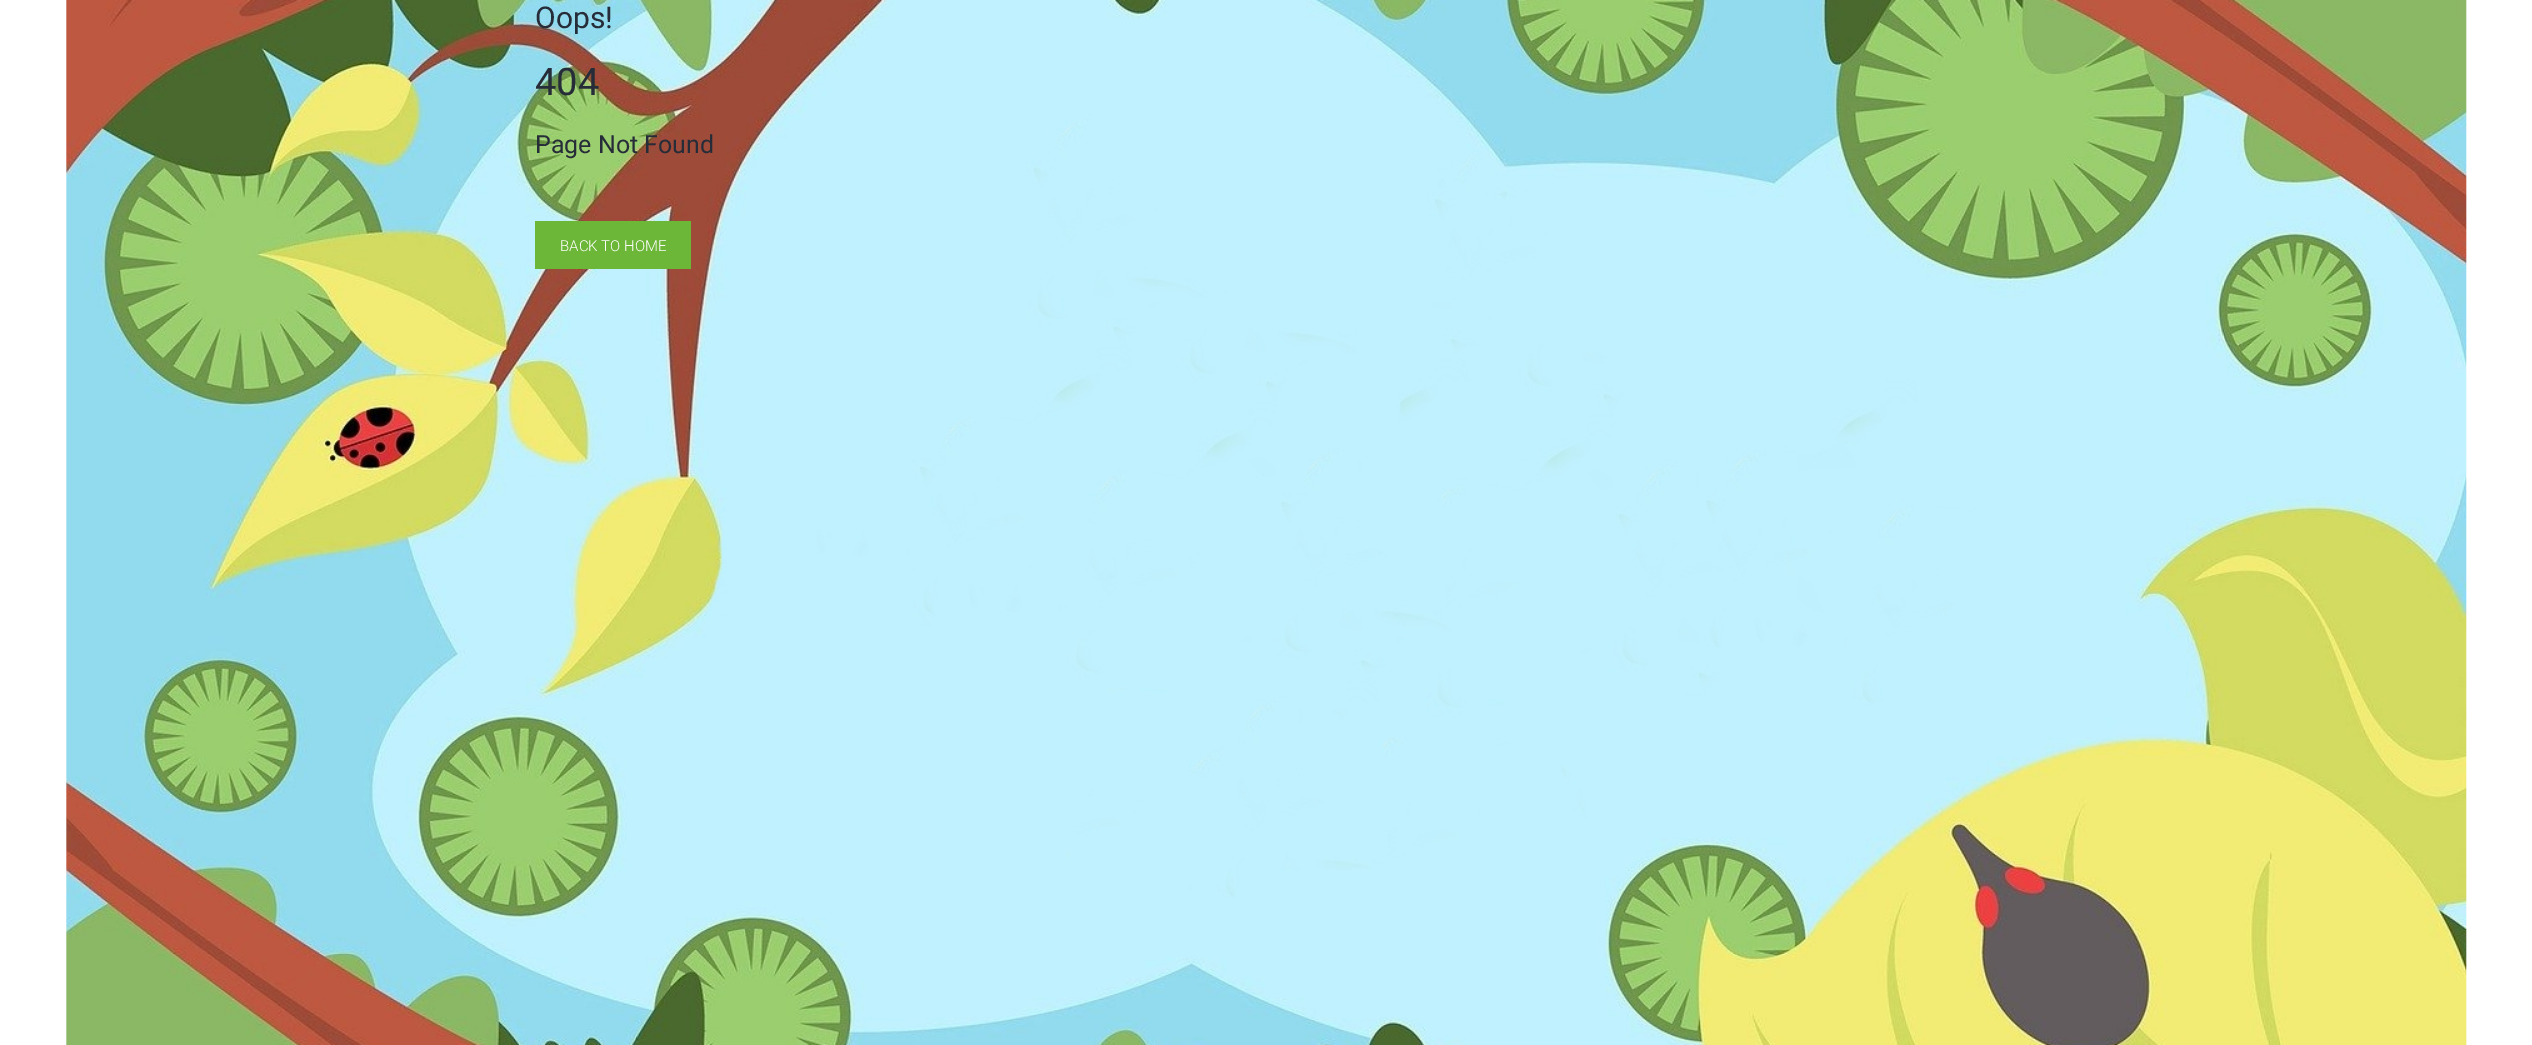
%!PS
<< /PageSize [2532 1045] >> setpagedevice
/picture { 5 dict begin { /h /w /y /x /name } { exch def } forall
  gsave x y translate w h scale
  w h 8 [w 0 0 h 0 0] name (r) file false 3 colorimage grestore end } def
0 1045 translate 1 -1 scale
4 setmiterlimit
1 setgray
0 0 2532 1045 rectfill
(img1.rgb) 66 0 2401 1045 picture
/Roboto-Regular [30 0 0 -30 0 0] selectfont
0.149 0.173 0.22 setrgbcolor
535 28 moveto (Oops!) show
/Roboto-Regular [38 0 0 -38 0 0] selectfont
535 95 moveto (404) show
/Roboto-Regular [25 0 0 -25 0 0] selectfont
535 153 moveto (Page Not Found) show
0.427 0.718 0.22 setrgbcolor
535 221 156 48 rectfill
/Roboto-Light [15 0 0 -15 0 0] selectfont
1 setgray
560 251 moveto (BACK TO HOME) show
showpage
